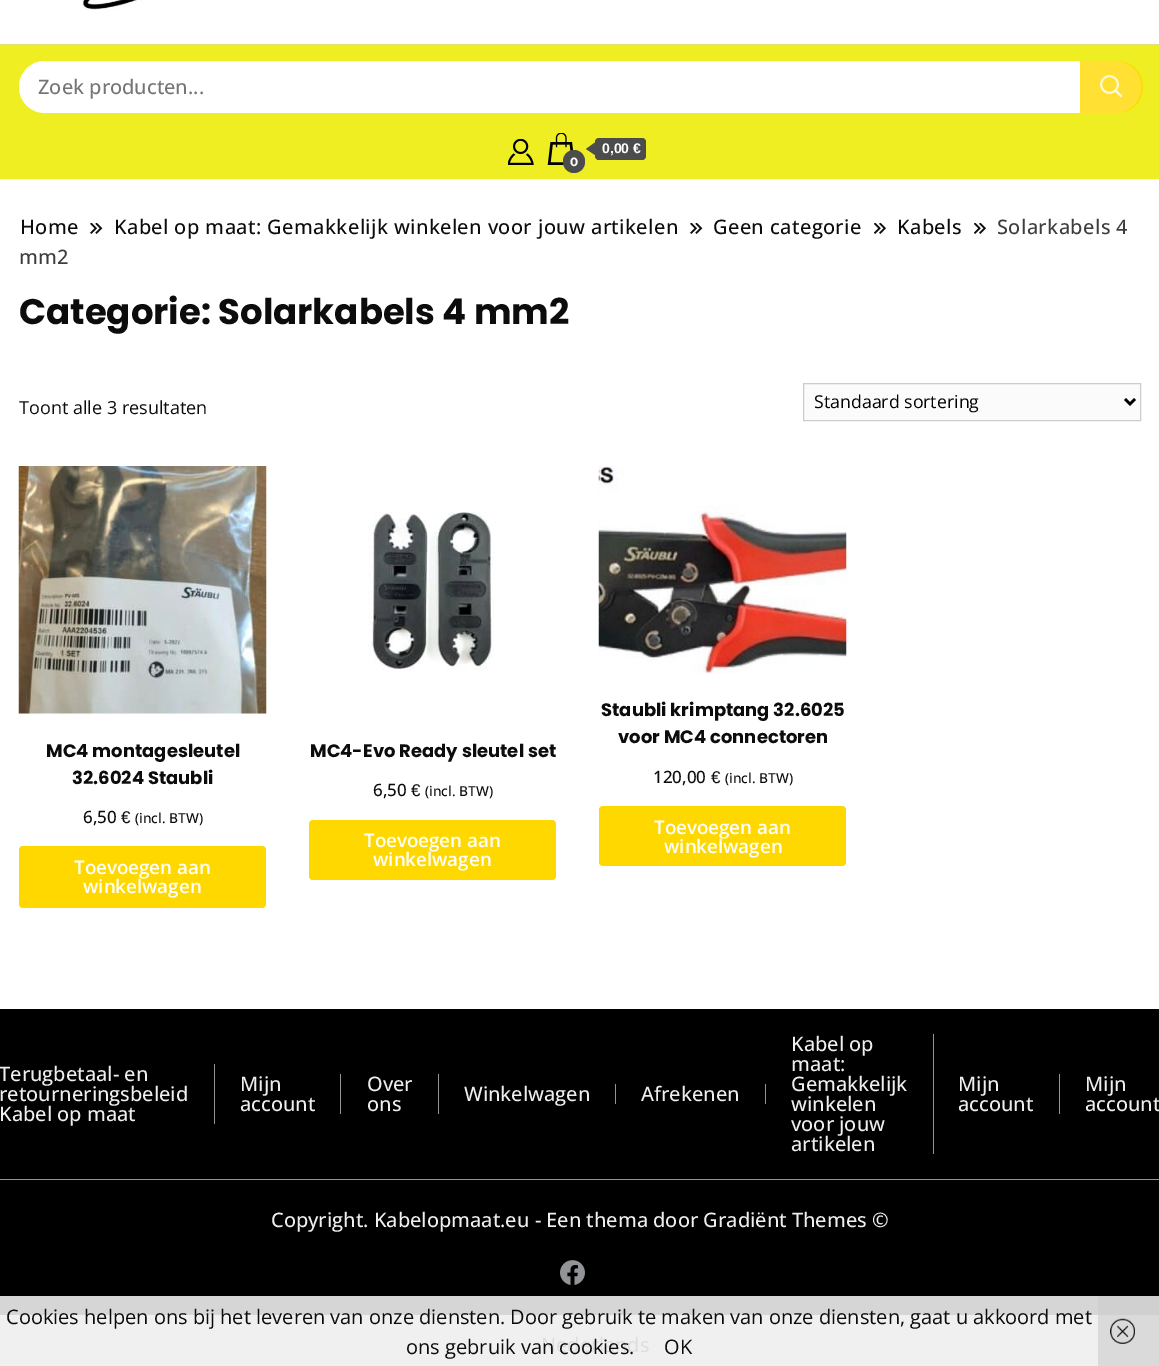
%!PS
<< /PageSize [1159 1366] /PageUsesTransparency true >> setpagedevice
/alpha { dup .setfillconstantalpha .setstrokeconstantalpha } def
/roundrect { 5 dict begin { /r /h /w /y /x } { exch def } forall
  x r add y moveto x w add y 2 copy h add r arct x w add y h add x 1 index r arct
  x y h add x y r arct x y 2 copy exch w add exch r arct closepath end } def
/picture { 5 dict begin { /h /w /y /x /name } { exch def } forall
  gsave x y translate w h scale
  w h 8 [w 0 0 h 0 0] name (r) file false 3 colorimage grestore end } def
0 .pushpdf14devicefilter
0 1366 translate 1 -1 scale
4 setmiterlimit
1 setgray
0 0 1159 1366 rectfill
0.941 setgray
0 1315 1098 51 rectfill
0.855 setgray
1098 1315 61 51 rectfill
(img1.rgb) 81 0 62 11 picture
0.933 0.933 0.133 setrgbcolor
0 45 1159 134 rectfill
0.875 0.878 0.482 setrgbcolor
0 44 1159 1 rectfill
1 setgray
19 61 1122 52 26 roundrect fill
/OpenSans-Medium [20 0 0 -20 0 0] selectfont
0.459 setgray
38 94 moveto (Zoek producten...) show
0.8 alpha
1 0.847 0 setrgbcolor
newpath 1080 61 moveto 1117 61 lineto 1131.5 61 1143 72.5 1143 87 curveto 1143 101.5 1131.5 113 1117 113 curveto 1080 113 lineto closepath fill
1 alpha
(img2.rgb) 1100 75 23 23 picture
(img3.rgb) 508 139 26 26 picture
(img4.rgb) 547 133 27 32 picture
0.298 setgray
595 138 51 22 4 roundrect fill
newpath 595 142.5 moveto 595 155 lineto 586 149 lineto closepath fill
/LiberationSans-Bold [14 0 0 -14 0 0] selectfont
1 setgray
602 153 moveto (0,00 €) show
0.298 setgray
563 150 22 23 11 roundrect fill
/Montserrat-Bold [12 0 0 -12 0 0] selectfont
1 setgray
570 166 moveto (0) show
/OpenSans-Medium [20 0 0 -20 0 0] selectfont
0.047 setgray
20 234 moveto 0.4 0 (Home) ashow
(img5.rgb) 90 223 13 11 picture
114 234 moveto 0.4 0 (Kabel op maat: Gemakkelijk winkelen voor jouw artikelen) ashow
(img5.rgb) 690 223 13 11 picture
713 234 moveto 0.4 0 (Geen categorie) ashow
(img6.rgb) 874 223 12 11 picture
897 234 moveto 0.4 0 (Kabels) ashow
(img6.rgb) 974 223 12 11 picture
0.239 setgray
997 234 moveto 0.4 0 (Solarkabels 4) ashow
19 264 moveto 0.4 0 (mm2) ashow
/Poppins-Bold [35.5 0 0 -35.5 0 0] selectfont
0.047 setgray
19 324 moveto (Categorie: Solarkabels 4 mm2) show
/OpenSans-Regular [18 0 0 -18 0 0] selectfont
19 414 moveto (Toont alle 3 resultaten) show
0.984 setgray
newpath 803.5 383.5 moveto 1140.5 383.5 lineto 1140.5 420.5 lineto 803.5 420.5 lineto closepath gsave fill grestore
0.8 setgray
stroke
0 setgray
2.5 setlinewidth
newpath 1125 399 moveto 1130 404 lineto 1135 399 lineto stroke
/OpenSans-Regular [17.75 0 0 -17.75 0 0] selectfont
814 408 moveto (Standaard sortering) show
(img7.rgb) 18 466 249 248 picture
/Poppins-Bold [18 0 0 -18 0 0] selectfont
0.047 setgray
46 757 moveto (MC4 montagesleutel) show
72 784 moveto (32.6024 Staubli) show
/OpenSans-Medium [17 0 0 -17 0 0] selectfont
83 823 moveto (6,50) show
/LiberationSans-Regular [17 0 0 -17 0 0] selectfont
121 823 moveto (€) show
/OpenSans-Medium [13.75 0 0 -13.75 0 0] selectfont
135 823 moveto (\(incl. BTW\)) show
1 0.847 0 setrgbcolor
19 846 247 62 4 roundrect fill
/OpenSans-SemiBold [18.75 0 0 -18.75 0 0] selectfont
1 setgray
74 874 moveto (Toevoegen aan) show
83 893 moveto (winkelwagen) show
(img8.rgb) 368 512 126 159 picture
/Poppins-Bold [18 0 0 -18 0 0] selectfont
0.047 setgray
310 757 moveto (MC4-Evo Ready sleutel set) show
/OpenSans-Medium [17 0 0 -17 0 0] selectfont
373 796 moveto (6,50) show
/LiberationSans-Regular [17 0 0 -17 0 0] selectfont
411 796 moveto (€) show
/OpenSans-Medium [13.75 0 0 -13.75 0 0] selectfont
425 796 moveto (\(incl. BTW\)) show
1 0.847 0 setrgbcolor
309 820 247 60 4 roundrect fill
/OpenSans-SemiBold [18.75 0 0 -18.75 0 0] selectfont
1 setgray
364 847 moveto (Toevoegen aan) show
373 866 moveto (winkelwagen) show
(img9.rgb) 598 466 249 208 picture
/Poppins-Bold [18 0 0 -18 0 0] selectfont
0.047 setgray
601 716 moveto (Staubli krimptang 32.6025) show
618 743 moveto (voor MC4 connectoren) show
/OpenSans-Medium [17 0 0 -17 0 0] selectfont
653 783 moveto (120,00) show
/LiberationSans-Regular [17 0 0 -17 0 0] selectfont
711 783 moveto (€) show
/OpenSans-Medium [13.75 0 0 -13.75 0 0] selectfont
725 783 moveto (\(incl. BTW\)) show
1 0.847 0 setrgbcolor
599 806 247 60 4 roundrect fill
/OpenSans-SemiBold [18.75 0 0 -18.75 0 0] selectfont
1 setgray
654 834 moveto (Toevoegen aan) show
664 853 moveto (winkelwagen) show
0 setgray
0 1009 1159 287 rectfill
0.839 setgray
0 1296 1098 19 rectfill
0.816 setgray
1098 1296 61 19 rectfill
0.573 0.58 0.592 setrgbcolor
214 1064 1 60 rectfill
/OpenSans-Medium [20 0 0 -20 0 0] selectfont
0.933 setgray
-1 1081 moveto (Terugbetaal- en) show
-1 1101 moveto (retourneringsbeleid) show
-1 1121 moveto (Kabel op maat) show
0.573 0.58 0.592 setrgbcolor
340 1074 1 40 rectfill
0.933 setgray
240 1091 moveto (Mijn) show
240 1111 moveto (account) show
0.573 0.58 0.592 setrgbcolor
438 1074 1 40 rectfill
0.933 setgray
367 1091 moveto (Over) show
367 1111 moveto (ons) show
0.573 0.58 0.592 setrgbcolor
615 1084 1 20 rectfill
0.933 setgray
464 1101 moveto (Winkelwagen) show
0.573 0.58 0.592 setrgbcolor
765 1084 1 20 rectfill
0.933 setgray
641 1101 moveto (Afrekenen) show
0.573 0.58 0.592 setrgbcolor
933 1034 1 120 rectfill
0.933 setgray
791 1051 moveto (Kabel op) show
791 1071 moveto (maat:) show
791 1091 moveto (Gemakkelijk) show
791 1111 moveto (winkelen) show
791 1131 moveto (voor jouw) show
791 1151 moveto (artikelen) show
0.573 0.58 0.592 setrgbcolor
1059 1074 1 40 rectfill
0.933 setgray
958 1091 moveto (Mijn) show
958 1111 moveto (account) show
1085 1091 moveto (Mijn) show
1085 1111 moveto (account) show
0.573 0.58 0.592 setrgbcolor
0 1179 1159 1 rectfill
0.933 setgray
271 1227 moveto (Copyright. Kabelopmaat.eu - Een thema door Gradiënt Themes ©) show
(img10.rgb) 560 1260 25 25 picture
/OpenSans-Regular [20 0 0 -20 0 0] selectfont
0.047 setgray
6 1324 moveto (Cookies helpen ons bij het leveren van onze diensten. Door gebruik te maken van onze diensten, gaat u akkoord met) show
0.867 setgray
541 1352 moveto (Nederlands) show
0.047 setgray
406 1354 moveto (ons gebruik van cookies.) show
664 1354 moveto (OK) show
(img11.rgb) 1110 1318 25 26 picture
.poppdf14devicefilter showpage
